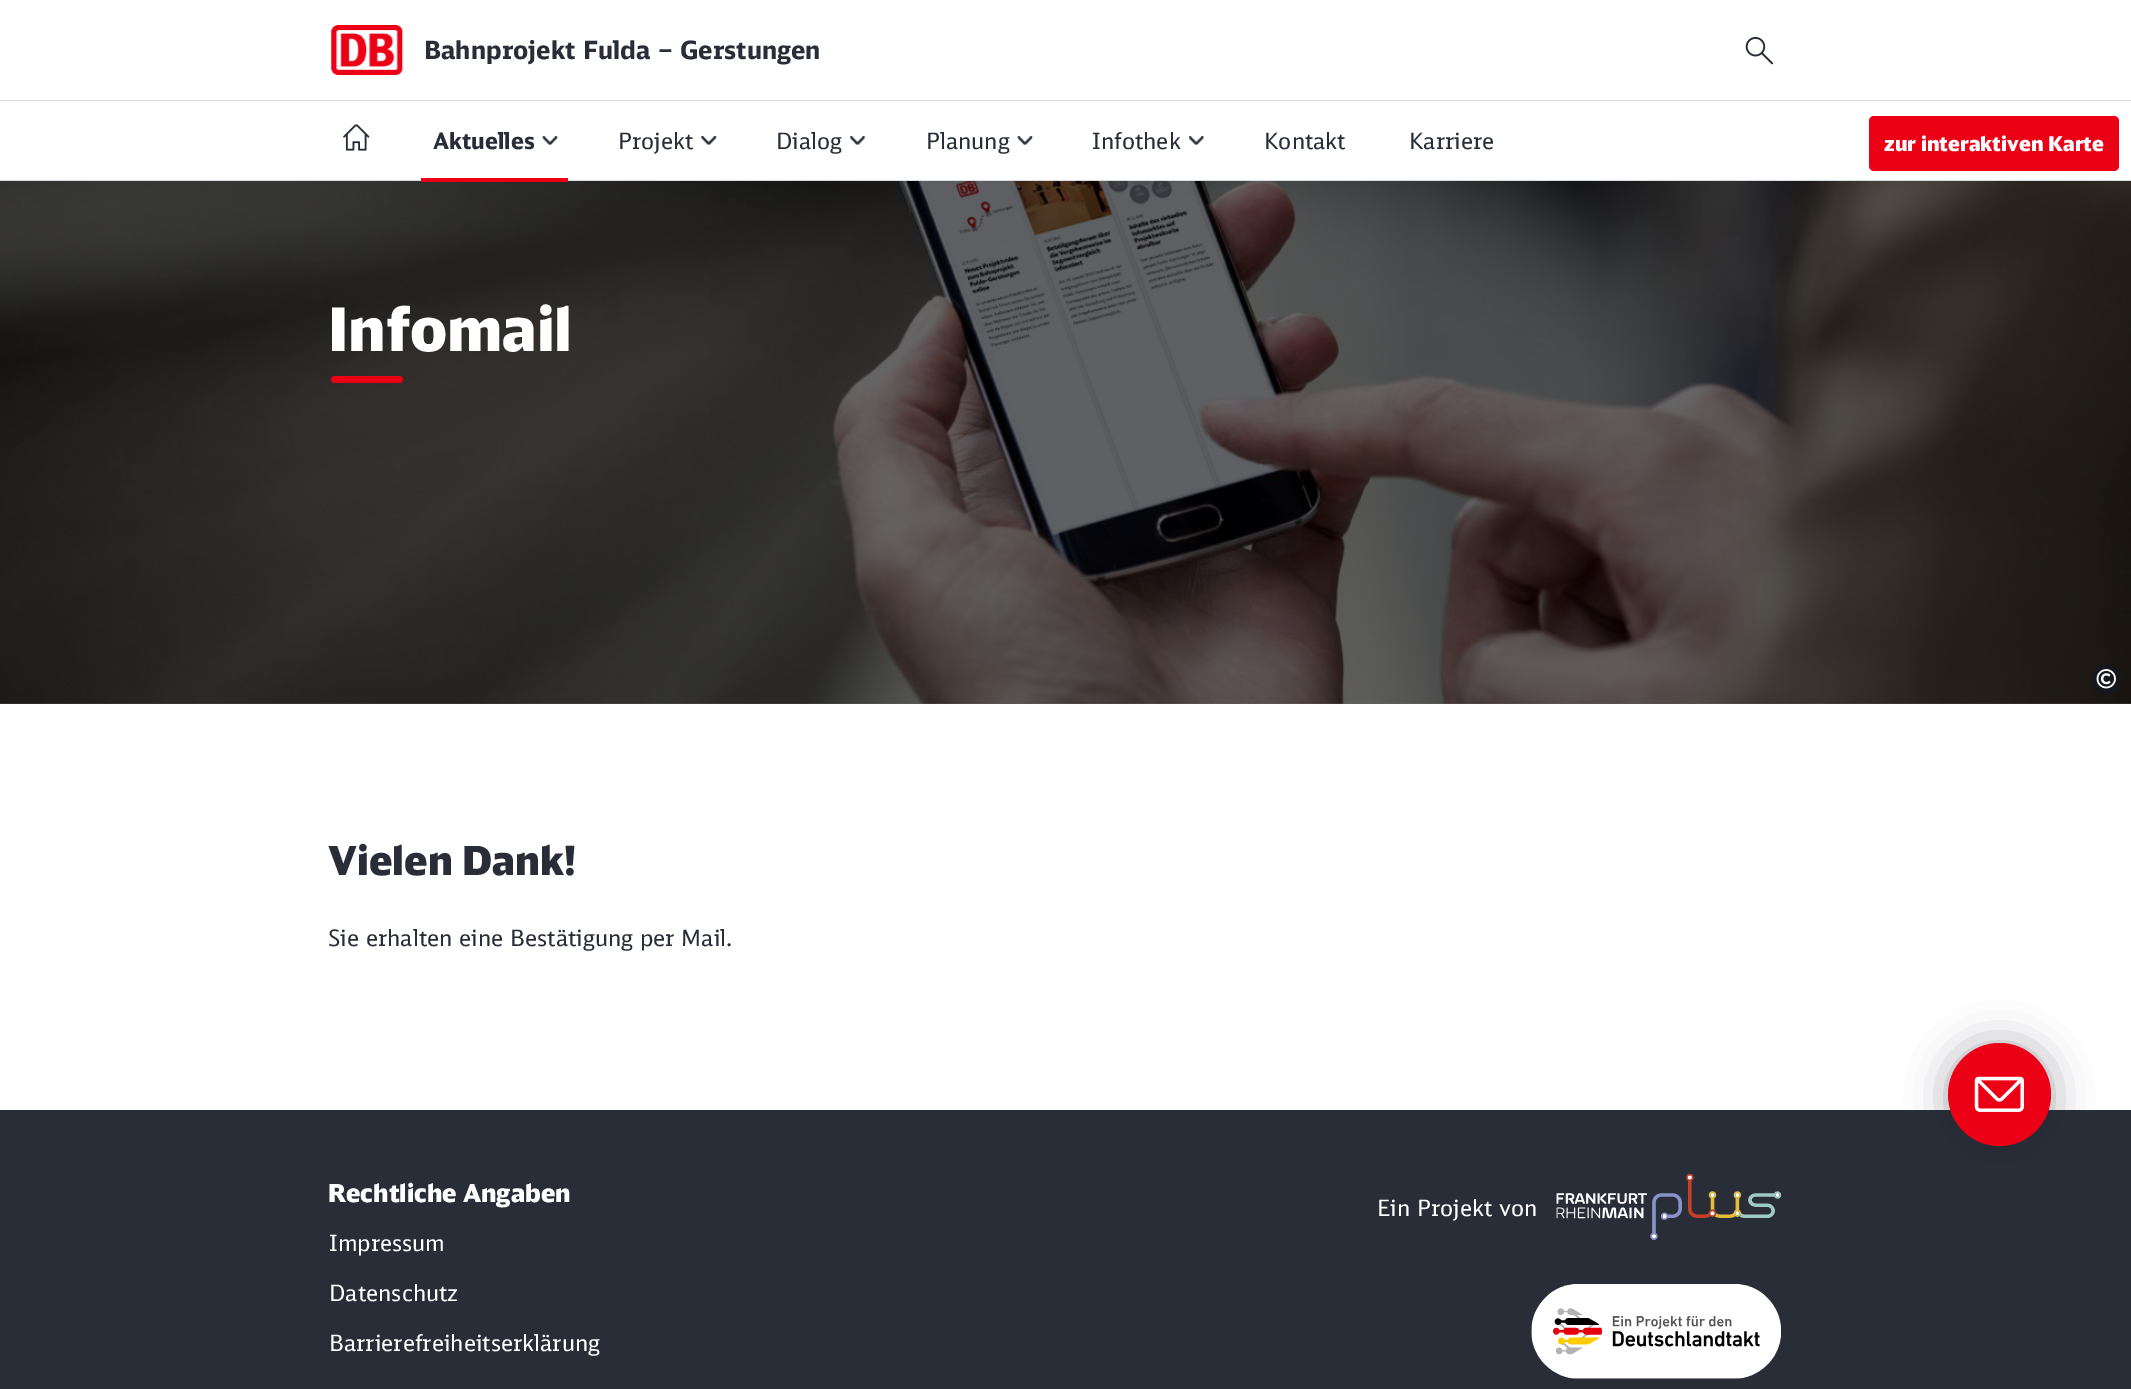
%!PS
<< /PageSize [2131 1389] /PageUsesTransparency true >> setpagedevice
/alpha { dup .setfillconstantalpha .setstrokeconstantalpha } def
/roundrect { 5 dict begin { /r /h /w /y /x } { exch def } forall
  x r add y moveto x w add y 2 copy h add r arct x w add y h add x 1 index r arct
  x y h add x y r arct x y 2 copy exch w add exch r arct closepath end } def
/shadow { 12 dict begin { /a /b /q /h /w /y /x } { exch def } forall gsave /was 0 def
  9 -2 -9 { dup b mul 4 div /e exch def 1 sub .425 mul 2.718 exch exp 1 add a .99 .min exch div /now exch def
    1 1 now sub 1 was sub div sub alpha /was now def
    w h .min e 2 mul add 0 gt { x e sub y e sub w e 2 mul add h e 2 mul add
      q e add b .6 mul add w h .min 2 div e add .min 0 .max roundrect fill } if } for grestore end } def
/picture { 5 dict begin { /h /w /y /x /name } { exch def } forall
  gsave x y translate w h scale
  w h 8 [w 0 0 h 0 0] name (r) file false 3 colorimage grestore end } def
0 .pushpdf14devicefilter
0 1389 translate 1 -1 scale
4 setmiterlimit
1 setgray
0 0 2131 1389 rectfill
(img1.rgb) 331 25 72 50 picture
/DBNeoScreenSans-Bold [25 0 0 -25 0 0] selectfont
0.157 0.176 0.216 setrgbcolor
424 59 moveto (Bahnprojekt Fulda – Gerstungen) show
(img2.rgb) 1745 37 28 28 picture
0.843 0.863 0.882 setrgbcolor
0 100 2131 1 rectfill
0 180 2131 1 rectfill
(img3.rgb) 343 124 27 27 picture
/DBNeoScreenSans-Bold [22.5 0 0 -22.5 0 0] selectfont
0.157 0.176 0.216 setrgbcolor
433 149 moveto (Aktuelles) show
(img4.rgb) 542 136 16 9 picture
(img8.rgb) 0 181 2131 523 picture
0.925 0 0.086 setrgbcolor
421 178 147 4 rectfill
/DBNeoScreenSans-Regular [22.5 0 0 -22.5 0 0] selectfont
0.157 0.176 0.216 setrgbcolor
618 149 moveto (Projekt) show
(img5.rgb) 701 136 16 9 picture
776 149 moveto (Dialog) show
(img6.rgb) 850 136 16 9 picture
926 149 moveto (Planung) show
(img4.rgb) 1017 136 16 9 picture
1092 149 moveto (Infothek) show
(img7.rgb) 1189 136 16 9 picture
1264 149 moveto (Kontakt) show
1409 149 moveto (Karriere) show
0.925 0 0.086 setrgbcolor
1869 116 250 55 5 roundrect fill
/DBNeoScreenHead-Black [20.25 0 0 -20.25 0 0] selectfont
1 setgray
1884 151 moveto (zur interaktiven Karte) show
/DBNeoScreenHead-Black [60 0 0 -60 0 0] selectfont
328 351 moveto (Infomail) show
0.925 0 0.086 setrgbcolor
331 376 72 7 3.5 roundrect fill
0.75 alpha
0.075 0.094 0.129 setrgbcolor
newpath 2106 679 15 0 360 arc closepath fill
1 alpha
(img9.rgb) 2096 669 20 20 picture
/DBNeoScreenHead-Black [40 0 0 -40 0 0] selectfont
0.157 0.176 0.216 setrgbcolor
328 875 moveto (Vielen Dank!) show
/DBNeoScreenSans-Regular [22.5 0 0 -22.5 0 0] selectfont
328 946 moveto (Sie erhalten eine Bestätigung per Mail.) show
0 1110 2131 279 rectfill
0.133 0.141 0.169 setrgbcolor
1948 1045 103 104 51.5 20 0.4 shadow
0.925 0 0.086 setrgbcolor
newpath 1999.5 1094.5 51.5 0 360 arc closepath fill
(img10.rgb) 1974 1076 50 36 picture
/DBNeoScreenHead-Black [24.75 0 0 -24.75 0 0] selectfont
1 setgray
328 1202 moveto (Rechtliche Angaben) show
/DBNeoScreenSans-Regular [22.5 0 0 -22.5 0 0] selectfont
329 1251 moveto (Impressum) show
329 1301 moveto (Datenschutz) show
329 1351 moveto (Barrierefreiheitserklärung) show
1377 1216 moveto (Ein Projekt von) show
(img11.rgb) 1556 1174 225 66 picture
(img12.rgb) 1531 1284 250 95 picture
.poppdf14devicefilter showpage
